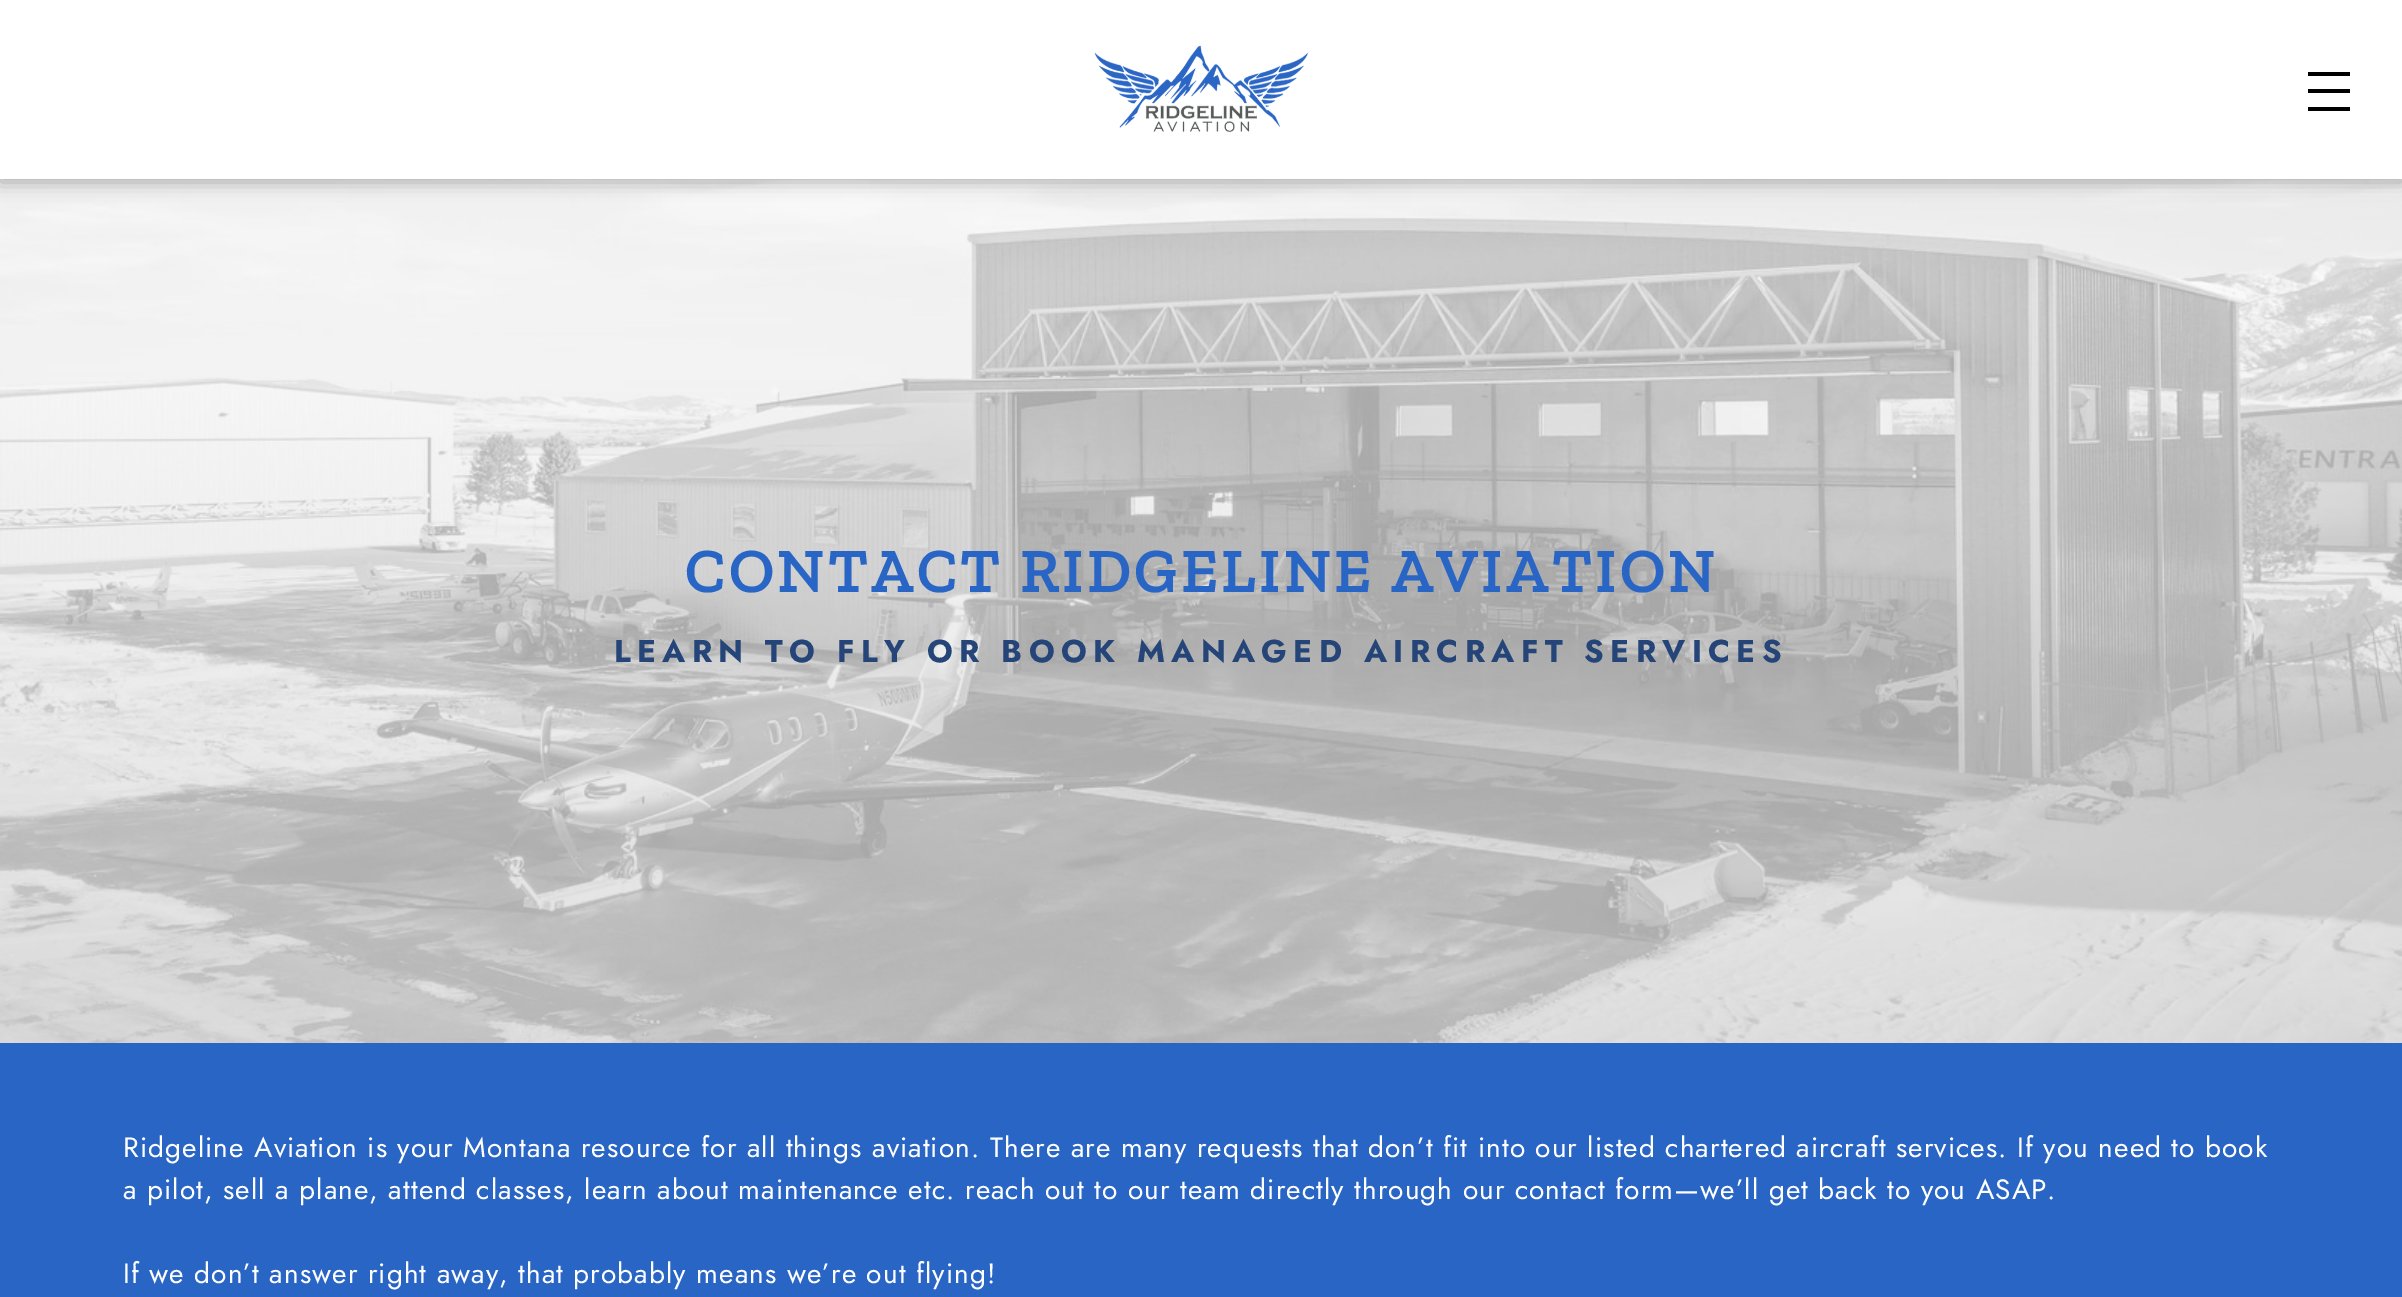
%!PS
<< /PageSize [2402 1297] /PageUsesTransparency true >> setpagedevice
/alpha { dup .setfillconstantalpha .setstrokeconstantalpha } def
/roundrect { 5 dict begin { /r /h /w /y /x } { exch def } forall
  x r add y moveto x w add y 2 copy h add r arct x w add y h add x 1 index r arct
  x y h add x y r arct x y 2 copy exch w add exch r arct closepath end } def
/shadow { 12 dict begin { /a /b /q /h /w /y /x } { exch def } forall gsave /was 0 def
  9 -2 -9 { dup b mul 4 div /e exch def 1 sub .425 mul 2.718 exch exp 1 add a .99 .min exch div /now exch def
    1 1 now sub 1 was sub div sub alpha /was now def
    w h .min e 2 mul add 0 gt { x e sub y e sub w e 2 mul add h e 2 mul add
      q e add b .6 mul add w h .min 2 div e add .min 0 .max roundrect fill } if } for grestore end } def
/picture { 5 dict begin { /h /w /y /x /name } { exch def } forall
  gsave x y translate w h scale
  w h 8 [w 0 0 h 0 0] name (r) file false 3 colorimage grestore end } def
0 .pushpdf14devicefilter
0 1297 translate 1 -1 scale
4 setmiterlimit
0.161 0.396 0.773 setrgbcolor
0 0 2402 1297 rectfill
(img2.rgb) 0 179 2402 864 picture
0 setgray
0 4 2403 178 0 9 0.3 shadow
1 setgray
0 0 2402 179 rectfill
(img1.rgb) 1094 45 214 88 picture
0 setgray
2308 72 42 4 rectfill
2308 89 42 4 rectfill
2308 107 42 4 rectfill
/ZillaSlab-SemiBold [63 0 0 -63 0 0] selectfont
0.161 0.396 0.773 setrgbcolor
685 592 moveto 3.15 0 (CONTACT RIDGELINE AVIATION) ashow
/Jost-Bold [31.5 0 0 -31.5 0 0] selectfont
0.145 0.271 0.471 setrgbcolor
614 662 moveto 6.3 0 (LEARN TO FLY OR BOOK MANAGED AIRCRAFT SERVICES) ashow
/Jost-Regular [28 0 0 -28 0 0] selectfont
1 setgray
123 1157 moveto 1.05 0 (Ridgeline Aviation is your Montana resource for all things aviation. There are many requests that don’t fit into our listed chartered aircraft services. If you need to book) ashow
123 1199 moveto 1.05 0 (a pilot, sell a plane, attend classes, learn about maintenance etc. reach out to our team directly through our contact form—we’ll get back to you ASAP.) ashow
123 1283 moveto 1.05 0 (If we don’t answer right away, that probably means we’re out flying!) ashow
.poppdf14devicefilter showpage
